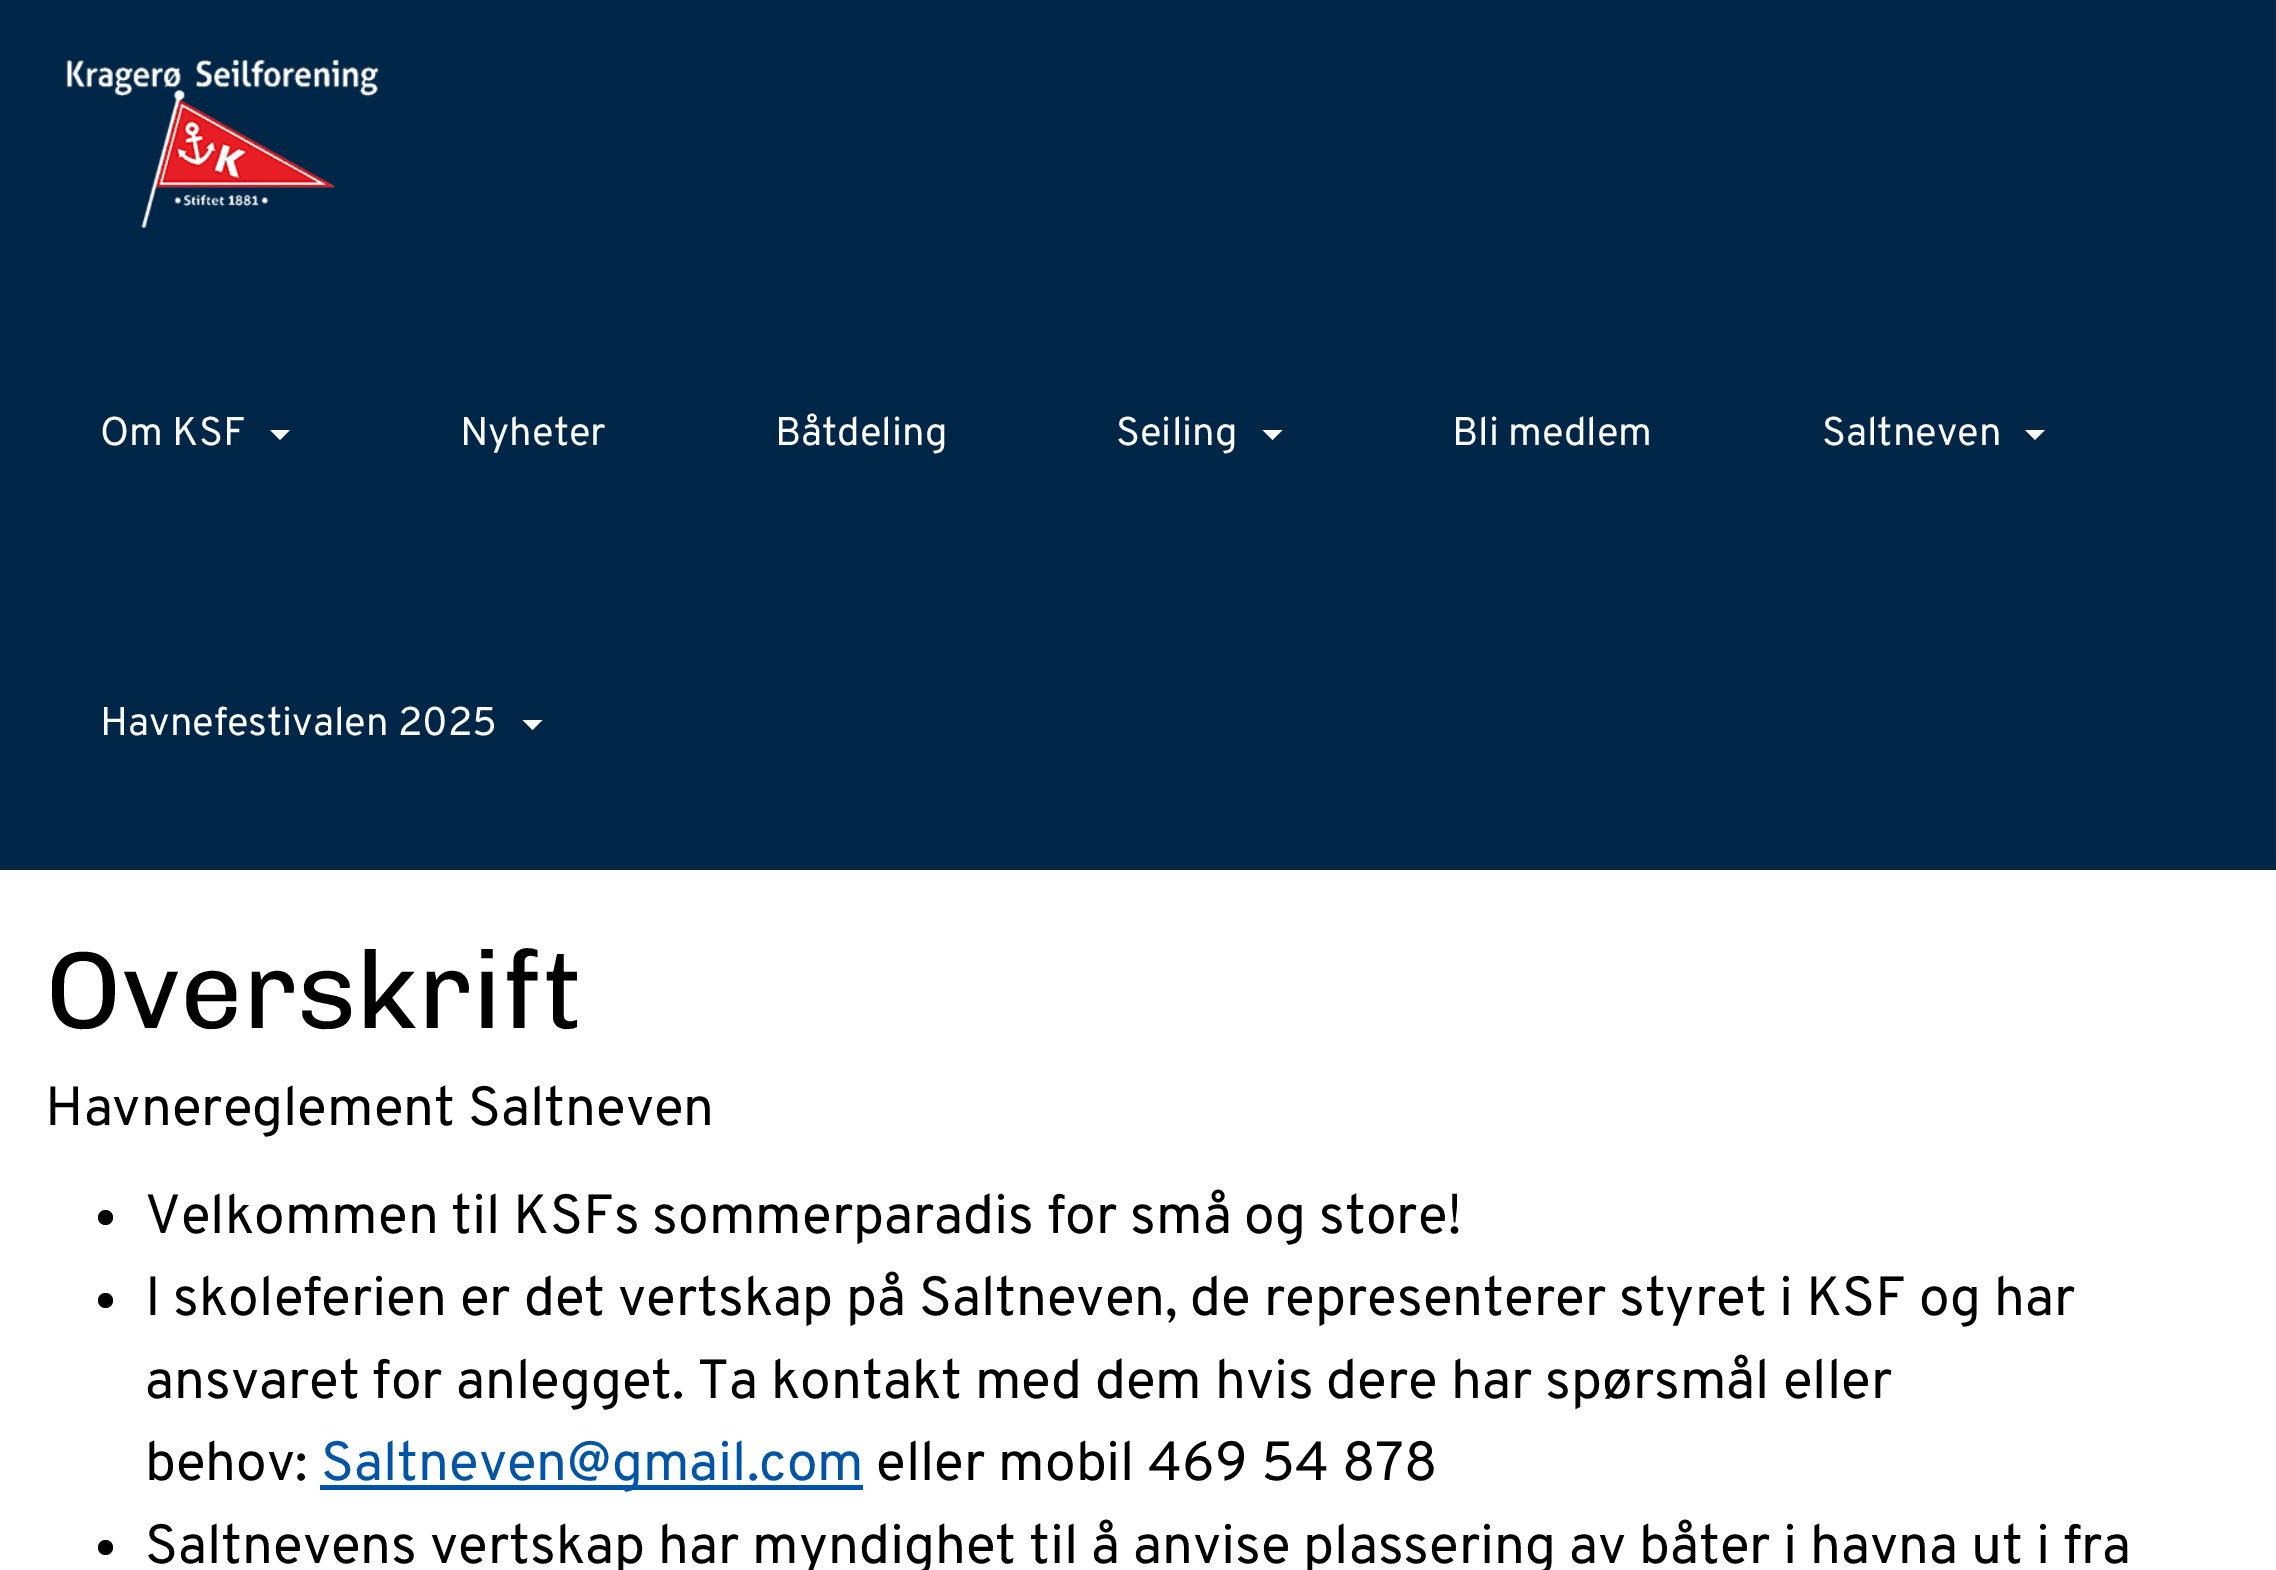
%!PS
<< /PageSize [2276 1570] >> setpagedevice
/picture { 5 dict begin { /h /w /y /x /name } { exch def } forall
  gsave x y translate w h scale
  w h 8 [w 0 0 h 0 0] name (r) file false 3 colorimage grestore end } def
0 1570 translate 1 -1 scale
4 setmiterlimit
1 setgray
0 0 2276 1570 rectfill
0 0.149 0.278 setrgbcolor
0 0 2276 870 rectfill
(img1.rgb) 66 59 313 170 picture
/Overpass-Regular [40 0 0 -40 0 0] selectfont
1 setgray
100 445 moveto (Om KSF) show
newpath 270 430 moveto 290 430 lineto 280 440 lineto closepath fill
460 445 moveto (Nyheter) show
775 445 moveto (Båtdeling) show
1116 445 moveto (Seiling) show
newpath 1262.5 430 moveto 1282.5 430 lineto 1272.5 440 lineto closepath fill
1452 445 moveto (Bli medlem) show
1822 445 moveto (Saltneven) show
newpath 2025 430 moveto 2045 430 lineto 2035 440 lineto closepath fill
100 735 moveto (Havnefestivalen 2025) show
newpath 522.5 720 moveto 542.5 720 lineto 532.5 730 lineto closepath fill
/Chivo-Regular [110 0 0 -110 0 0] selectfont
0 setgray
45 1028 moveto (Overskrift) show
/Overpass-Regular [55 0 0 -55 0 0] selectfont
45 1125 moveto (Havnereglement Saltneven) show
newpath 105.5 1217.5 7.5 0 360 arc closepath fill
145 1233 moveto (Velkommen til KSFs sommerparadis for små og store!) show
newpath 105.5 1300.5 7.5 0 360 arc closepath fill
145 1315 moveto (I skoleferien er det vertskap på Saltneven, de representerer styret i KSF og har) show
145 1398 moveto (ansvaret for anlegget. Ta kontakt med dem hvis dere har spørsmål eller) show
145 1480 moveto (behov:) show
0 0.329 0.651 setrgbcolor
320 1485 543 5 rectfill
321 1480 moveto (Saltneven@gmail.com) show
0 setgray
876 1480 moveto (eller mobil 469 54 878) show
newpath 105.5 1547.5 7.5 0 360 arc closepath fill
145 1563 moveto (Saltnevens vertskap har myndighet til å anvise plassering av båter i havna ut i fra) show
showpage
